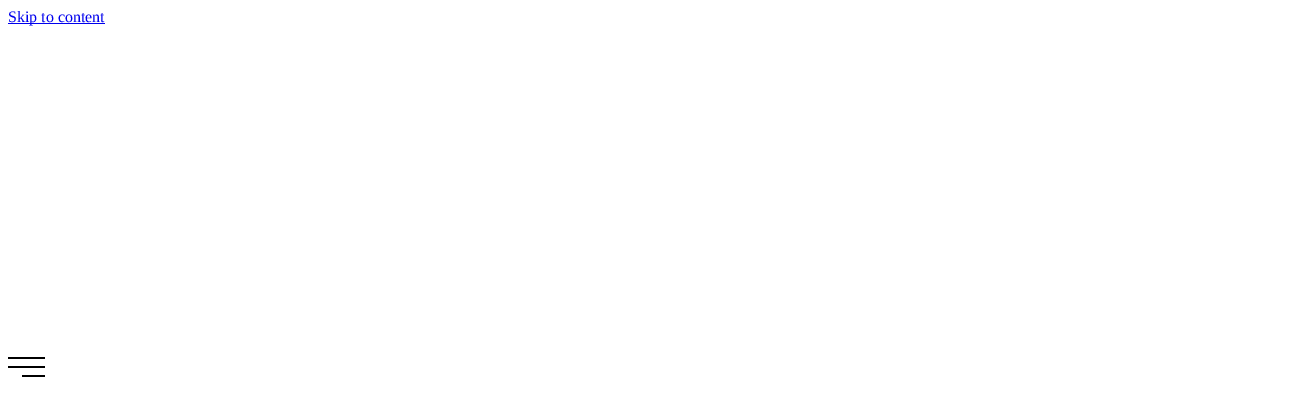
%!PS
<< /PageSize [1311 397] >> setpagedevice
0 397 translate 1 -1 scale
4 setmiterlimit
1 setgray
0 0 1311 397 rectfill
0 0 0.933 setrgbcolor
8 23 97 1 rectfill
/LiberationSerif-Regular [16 0 0 -16 0 0] selectfont
8 22 moveto (Skip to content) show
0 setgray
8 357 37 2 rectfill
8 366 37 2 rectfill
22 375 23 2 rectfill
showpage
